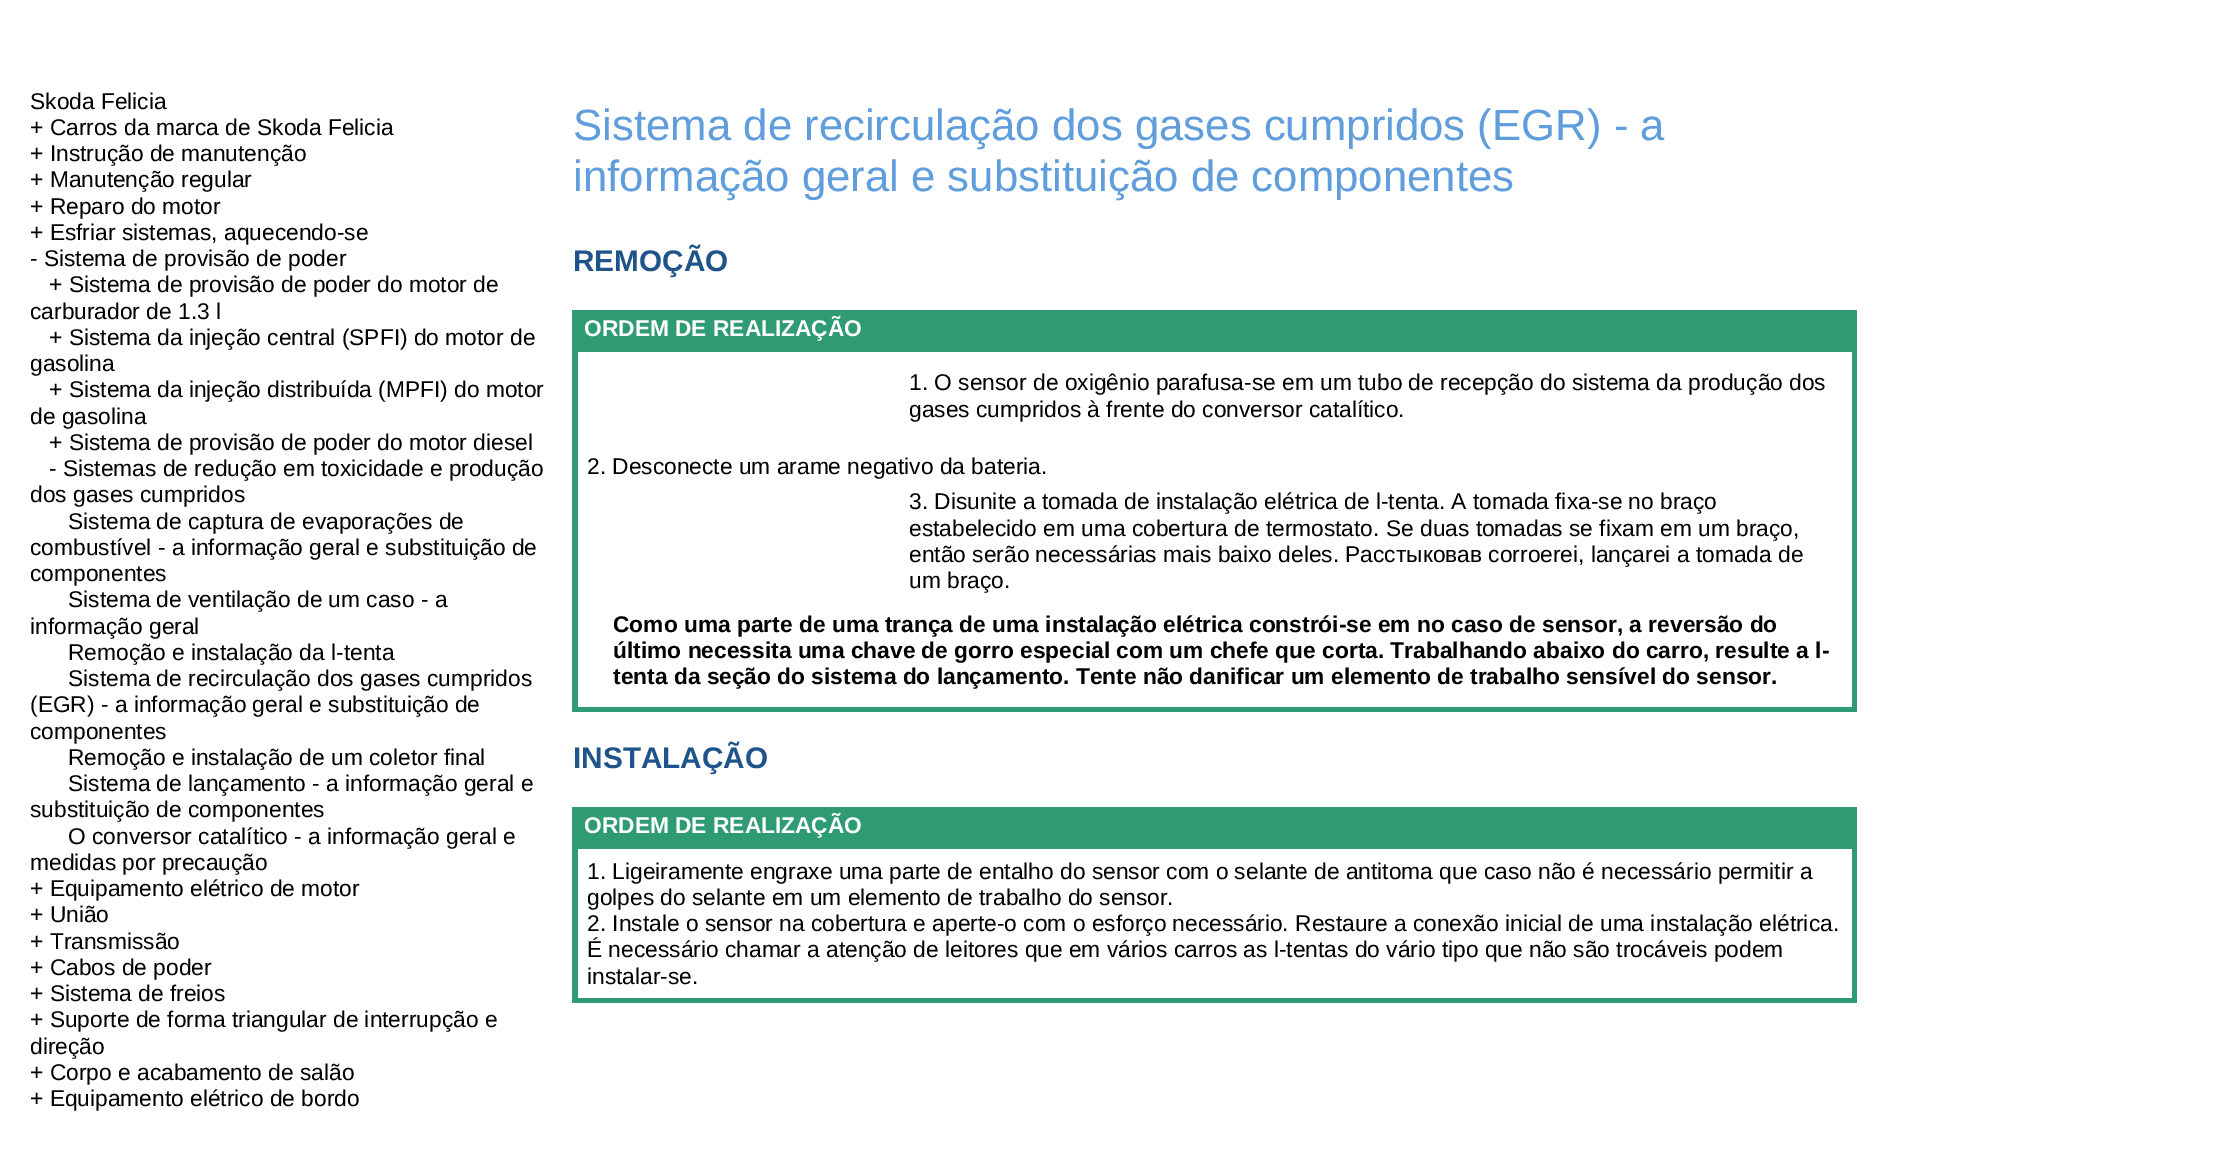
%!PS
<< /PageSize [2215 1156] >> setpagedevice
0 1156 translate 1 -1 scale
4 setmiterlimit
1 setgray
0 0 2215 1156 rectfill
/LiberationSans-Regular [22.75 0 0 -22.75 0 0] selectfont
0 setgray
30 109 moveto (Skoda Felicia) show
30 135 moveto (+ Carros da marca de Skoda Felicia) show
30 161 moveto (+ Instrução de manutenção) show
30 187 moveto (+ Manutenção regular) show
30 214 moveto (+ Reparo do motor) show
30 240 moveto (+ Esfriar sistemas, aquecendo-se) show
30 266 moveto (- Sistema de provisão de poder) show
49 292 moveto (+ Sistema de provisão de poder do motor de) show
30 319 moveto (carburador de 1.3 l) show
49 345 moveto (+ Sistema da injeção central \(SPFI\) do motor de) show
30 371 moveto (gasolina) show
49 397 moveto (+ Sistema da injeção distribuída \(MPFI\) do motor) show
30 424 moveto (de gasolina) show
49 450 moveto (+ Sistema de provisão de poder do motor diesel) show
49 476 moveto (- Sistemas de redução em toxicidade e produção) show
30 502 moveto (dos gases cumpridos) show
68 529 moveto (Sistema de captura de evaporações de) show
30 555 moveto (combustível - a informação geral e substituição de) show
30 581 moveto (componentes) show
68 607 moveto (Sistema de ventilação de um caso - a) show
30 634 moveto (informação geral) show
68 660 moveto (Remoção e instalação da l-tenta) show
68 686 moveto (Sistema de recirculação dos gases cumpridos) show
30 712 moveto (\(EGR\) - a informação geral e substituição de) show
30 739 moveto (componentes) show
68 765 moveto (Remoção e instalação de um coletor final) show
68 791 moveto (Sistema de lançamento - a informação geral e) show
30 817 moveto (substituição de componentes) show
68 844 moveto (O conversor catalítico - a informação geral e) show
30 870 moveto (medidas por precaução) show
30 896 moveto (+ Equipamento elétrico de motor) show
30 922 moveto (+ União) show
30 949 moveto (+ Transmissão) show
30 975 moveto (+ Cabos de poder) show
30 1001 moveto (+ Sistema de freios) show
30 1027 moveto (+ Suporte de forma triangular de interrupção e) show
30 1054 moveto (direção) show
30 1080 moveto (+ Corpo e acabamento de salão) show
30 1106 moveto (+ Equipamento elétrico de bordo) show
/LiberationSans-Regular [43.75 0 0 -43.75 0 0] selectfont
0.376 0.616 0.863 setrgbcolor
573 140 moveto (Sistema de recirculação dos gases cumpridos \(EGR\) - a) show
573 191 moveto (informação geral e substituição de componentes) show
/LiberationSans-Bold [29.75 0 0 -29.75 0 0] selectfont
0.122 0.329 0.541 setrgbcolor
573 271 moveto (REMOÇÃO) show
0.184 0.608 0.447 setrgbcolor
572 310 1285 402 rectfill
/LiberationSans-Bold [22.75 0 0 -22.75 0 0] selectfont
1 setgray
584 336 moveto (ORDEM DE REALIZAÇÃO) show
578 352 1274 355 rectfill
/LiberationSans-Regular [22.75 0 0 -22.75 0 0] selectfont
0 setgray
909 390 moveto (1. O sensor de oxigênio parafusa-se em um tubo de recepção do sistema da produção dos) show
909 417 moveto (gases cumpridos à frente do conversor catalítico.) show
587 474 moveto (2. Desconecte um arame negativo da bateria.) show
909 509 moveto (3. Disunite a tomada de instalação elétrica de l-tenta. A tomada fixa-se no braço) show
909 536 moveto (estabelecido em uma cobertura de termostato. Se duas tomadas se fixam em um braço,) show
909 562 moveto (então serão necessárias mais baixo deles. Расстыковав corroerei, lançarei a tomada de) show
909 588 moveto (um braço.) show
/LiberationSans-Bold [22.75 0 0 -22.75 0 0] selectfont
613 632 moveto (Como uma parte de uma trança de uma instalação elétrica constrói-se em no caso de sensor, a reversão do) show
613 658 moveto (último necessita uma chave de gorro especial com um chefe que corta. Trabalhando abaixo do carro, resulte a l-) show
613 684 moveto (tenta da seção do sistema do lançamento. Tente não danificar um elemento de trabalho sensível do sensor.) show
/LiberationSans-Bold [29.75 0 0 -29.75 0 0] selectfont
0.122 0.329 0.541 setrgbcolor
573 768 moveto (INSTALAÇÃO) show
0.184 0.608 0.447 setrgbcolor
572 807 1285 196 rectfill
/LiberationSans-Bold [22.75 0 0 -22.75 0 0] selectfont
1 setgray
584 833 moveto (ORDEM DE REALIZAÇÃO) show
578 849 1274 149 rectfill
/LiberationSans-Regular [22.75 0 0 -22.75 0 0] selectfont
0 setgray
587 879 moveto (1. Ligeiramente engraxe uma parte de entalho do sensor com o selante de antitoma que caso não é necessário permitir a) show
587 905 moveto (golpes do selante em um elemento de trabalho do sensor.) show
587 931 moveto (2. Instale o sensor na cobertura e aperte-o com o esforço necessário. Restaure a conexão inicial de uma instalação elétrica.) show
587 957 moveto (É necessário chamar a atenção de leitores que em vários carros as l-tentas do vário tipo que não são trocáveis podem) show
587 984 moveto (instalar-se.) show
showpage
